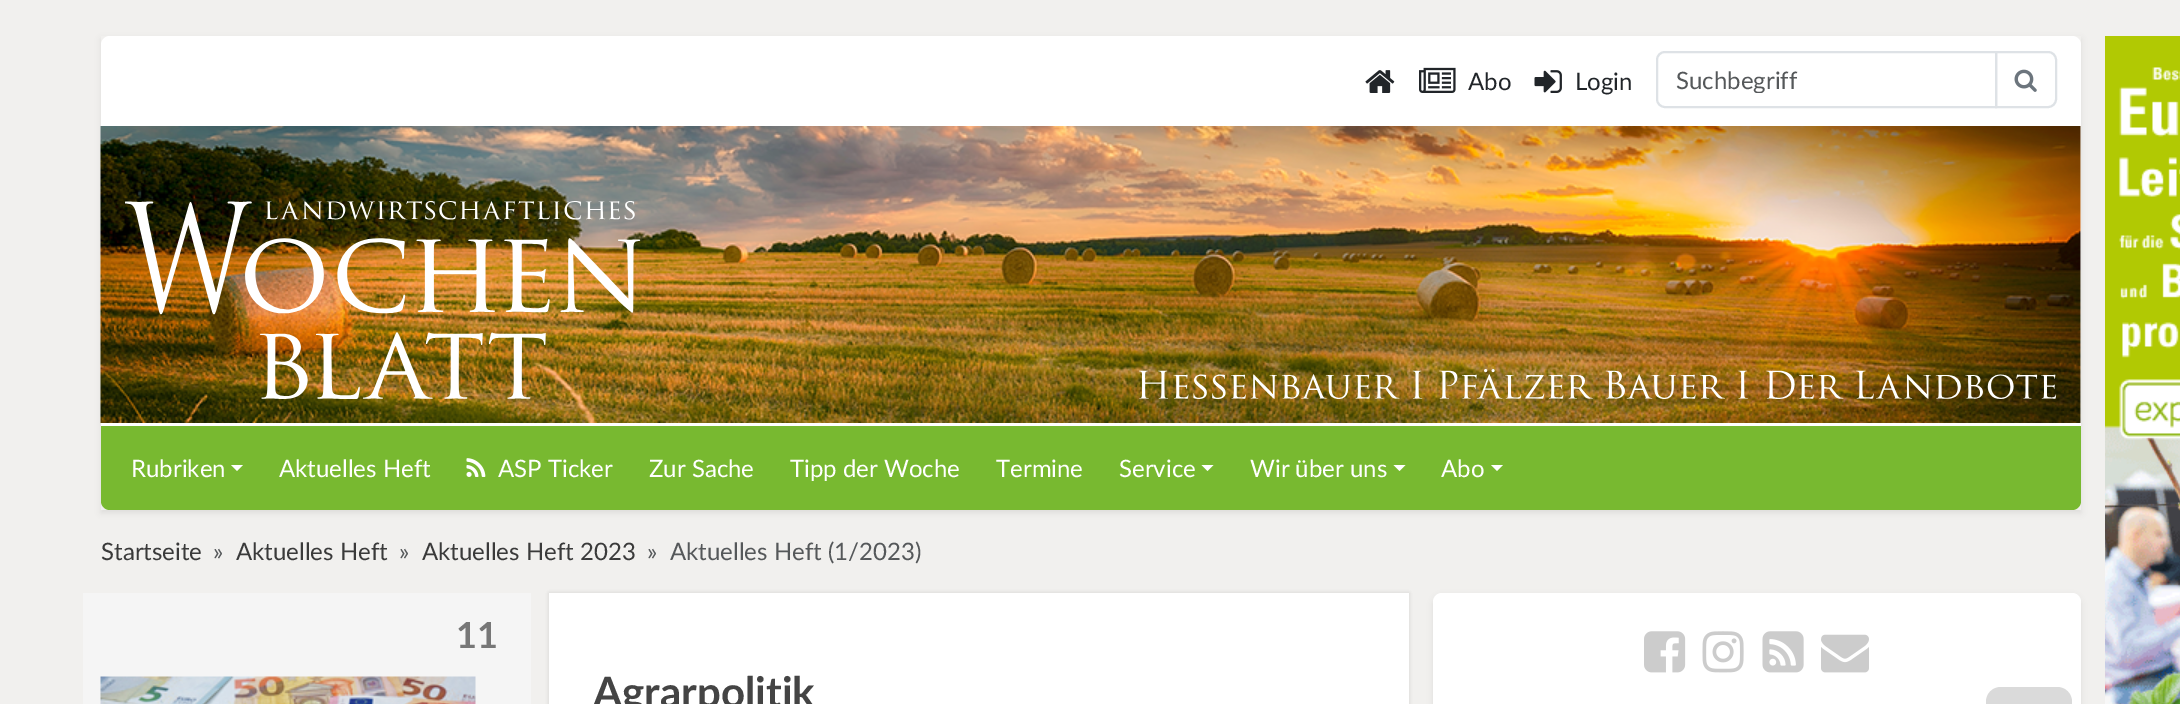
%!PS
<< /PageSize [2180 704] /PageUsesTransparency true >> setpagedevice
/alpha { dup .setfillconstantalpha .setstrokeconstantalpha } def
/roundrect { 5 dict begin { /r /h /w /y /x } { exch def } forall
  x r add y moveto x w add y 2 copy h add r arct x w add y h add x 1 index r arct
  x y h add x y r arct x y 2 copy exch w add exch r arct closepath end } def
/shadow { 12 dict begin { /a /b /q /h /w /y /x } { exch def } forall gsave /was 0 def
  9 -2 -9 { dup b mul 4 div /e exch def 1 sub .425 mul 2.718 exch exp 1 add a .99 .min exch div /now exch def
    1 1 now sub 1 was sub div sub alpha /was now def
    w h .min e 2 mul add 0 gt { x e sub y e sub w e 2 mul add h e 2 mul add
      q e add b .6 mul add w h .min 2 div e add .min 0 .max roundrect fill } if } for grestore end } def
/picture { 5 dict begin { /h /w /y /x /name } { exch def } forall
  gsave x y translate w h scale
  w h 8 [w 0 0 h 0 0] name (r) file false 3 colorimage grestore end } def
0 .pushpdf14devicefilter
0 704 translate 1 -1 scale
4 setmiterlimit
0.945 0.941 0.933 setrgbcolor
0 0 2180 704 rectfill
gsave
newpath 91 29 moveto 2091 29 lineto 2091 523 lineto 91 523 lineto closepath 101 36 moveto 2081 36 lineto 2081 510 lineto 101 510 lineto closepath eoclip newpath
0 setgray
101 39 1980 474 0 3 0.07 shadow
grestore
1 setgray
newpath 110 36 moveto 2072 36 lineto 2077 36 2081 40 2081 45 curveto 2081 126 lineto 101 126 lineto 101 45 lineto 101 40 105 36 110 36 curveto closepath fill
(img1.rgb) 1365 70 30 23 picture
(img2.rgb) 1419 67 37 26 picture
/Lato-Regular [24 0 0 -24 0 0] selectfont
0.129 0.145 0.161 setrgbcolor
1468 90 moveto (Abo) show
(img3.rgb) 1534 70 28 23 picture
1575 90 moveto (Login) show
0.871 0.886 0.902 setrgbcolor
2 setlinewidth
newpath 1665 52 moveto 1996 52 lineto 1996 107 lineto 1665 107 lineto 1660.5 107 1657 103.5 1657 99 curveto 1657 60 lineto 1657 55.5 1660.5 52 1665 52 curveto closepath stroke
gsave
1676 65 301 28 rectclip
0.333 0.345 0.353 setrgbcolor
1676 89 moveto (Suchbegriff) show
grestore
newpath 1996 52 moveto 2048 52 lineto 2052.5 52 2056 55.5 2056 60 curveto 2056 99 lineto 2056 103.5 2052.5 107 2048 107 curveto 1996 107 lineto closepath stroke
(img4.rgb) 2014 69 23 23 picture
(img5.rgb) 2105 36 75 668 picture
1 setgray
101 126 1980 300 rectfill
(img6.rgb) 100 126 1981 297 picture
(img7.rgb) 125 201 516 198 picture
(img8.rgb) 1139 369 918 30 picture
0.471 0.725 0.188 setrgbcolor
newpath 101 426 moveto 2081 426 lineto 2081 501 lineto 2081 506 2077 510 2072 510 curveto 110 510 lineto 105 510 101 506 101 501 curveto closepath fill
1 setgray
131 477 moveto (Rubriken) show
newpath 231 465 moveto 243 465 lineto 237 471 lineto closepath fill
279 477 moveto (Aktuelles Heft) show
(img9.rgb) 466 458 20 19 picture
498 477 moveto (ASP Ticker) show
649 477 moveto (Zur Sache) show
790 477 moveto (Tipp der Woche) show
996 477 moveto (Termine) show
1119 477 moveto (Service) show
newpath 1201.5 465 moveto 1213.5 465 lineto 1207.5 471 lineto closepath fill
1250 477 moveto (Wir über uns) show
newpath 1393.5 465 moveto 1405.5 465 lineto 1399.5 471 lineto closepath fill
1441 477 moveto (Abo) show
newpath 1491 465 moveto 1503 465 lineto 1497 471 lineto closepath fill
0.227 setgray
101 560 moveto (Startseite) show
0.333 0.345 0.353 setrgbcolor
213 560 moveto (») show
0.227 setgray
236 560 moveto (Aktuelles Heft) show
0.333 0.345 0.353 setrgbcolor
399 560 moveto (») show
0.227 setgray
422 560 moveto (Aktuelles Heft 2023) show
0.333 0.345 0.353 setrgbcolor
647 560 moveto (») show
670 560 moveto (Aktuelles Heft \(1/2023\)) show
0.961 setgray
83 593 448 111 rectfill
/Lato-Bold [36 0 0 -36 0 0] selectfont
0.467 setgray
456 648 moveto (11) show
(img10.rgb) 100 676 376 28 picture
0.2 setgray
549 593 860 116 0 1.5 0.08 shadow
549 593 860 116 0 1.5 0.08 shadow
1 setgray
549 593 860 111 rectfill
/Lato-Bold [42 0 0 -42 0 0] selectfont
0.267 setgray
593 707 moveto (Agrarpolitik) show
0 setgray
1433 596 648 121 9 3 0.07 shadow
1 setgray
1433 593 648 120 9 roundrect fill
(img11.rgb) 1644 631 42 42 picture
(img12.rgb) 1702 631 42 42 picture
(img13.rgb) 1762 631 42 42 picture
(img14.rgb) 1821 634 48 39 picture
0.855 setgray
newpath 2001 687 moveto 2057 687 lineto 2065.5 687 2072 693.5 2072 702 curveto 2072 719 lineto 1986 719 lineto 1986 702 lineto 1986 693.5 1992.5 687 2001 687 curveto closepath fill
.poppdf14devicefilter showpage
